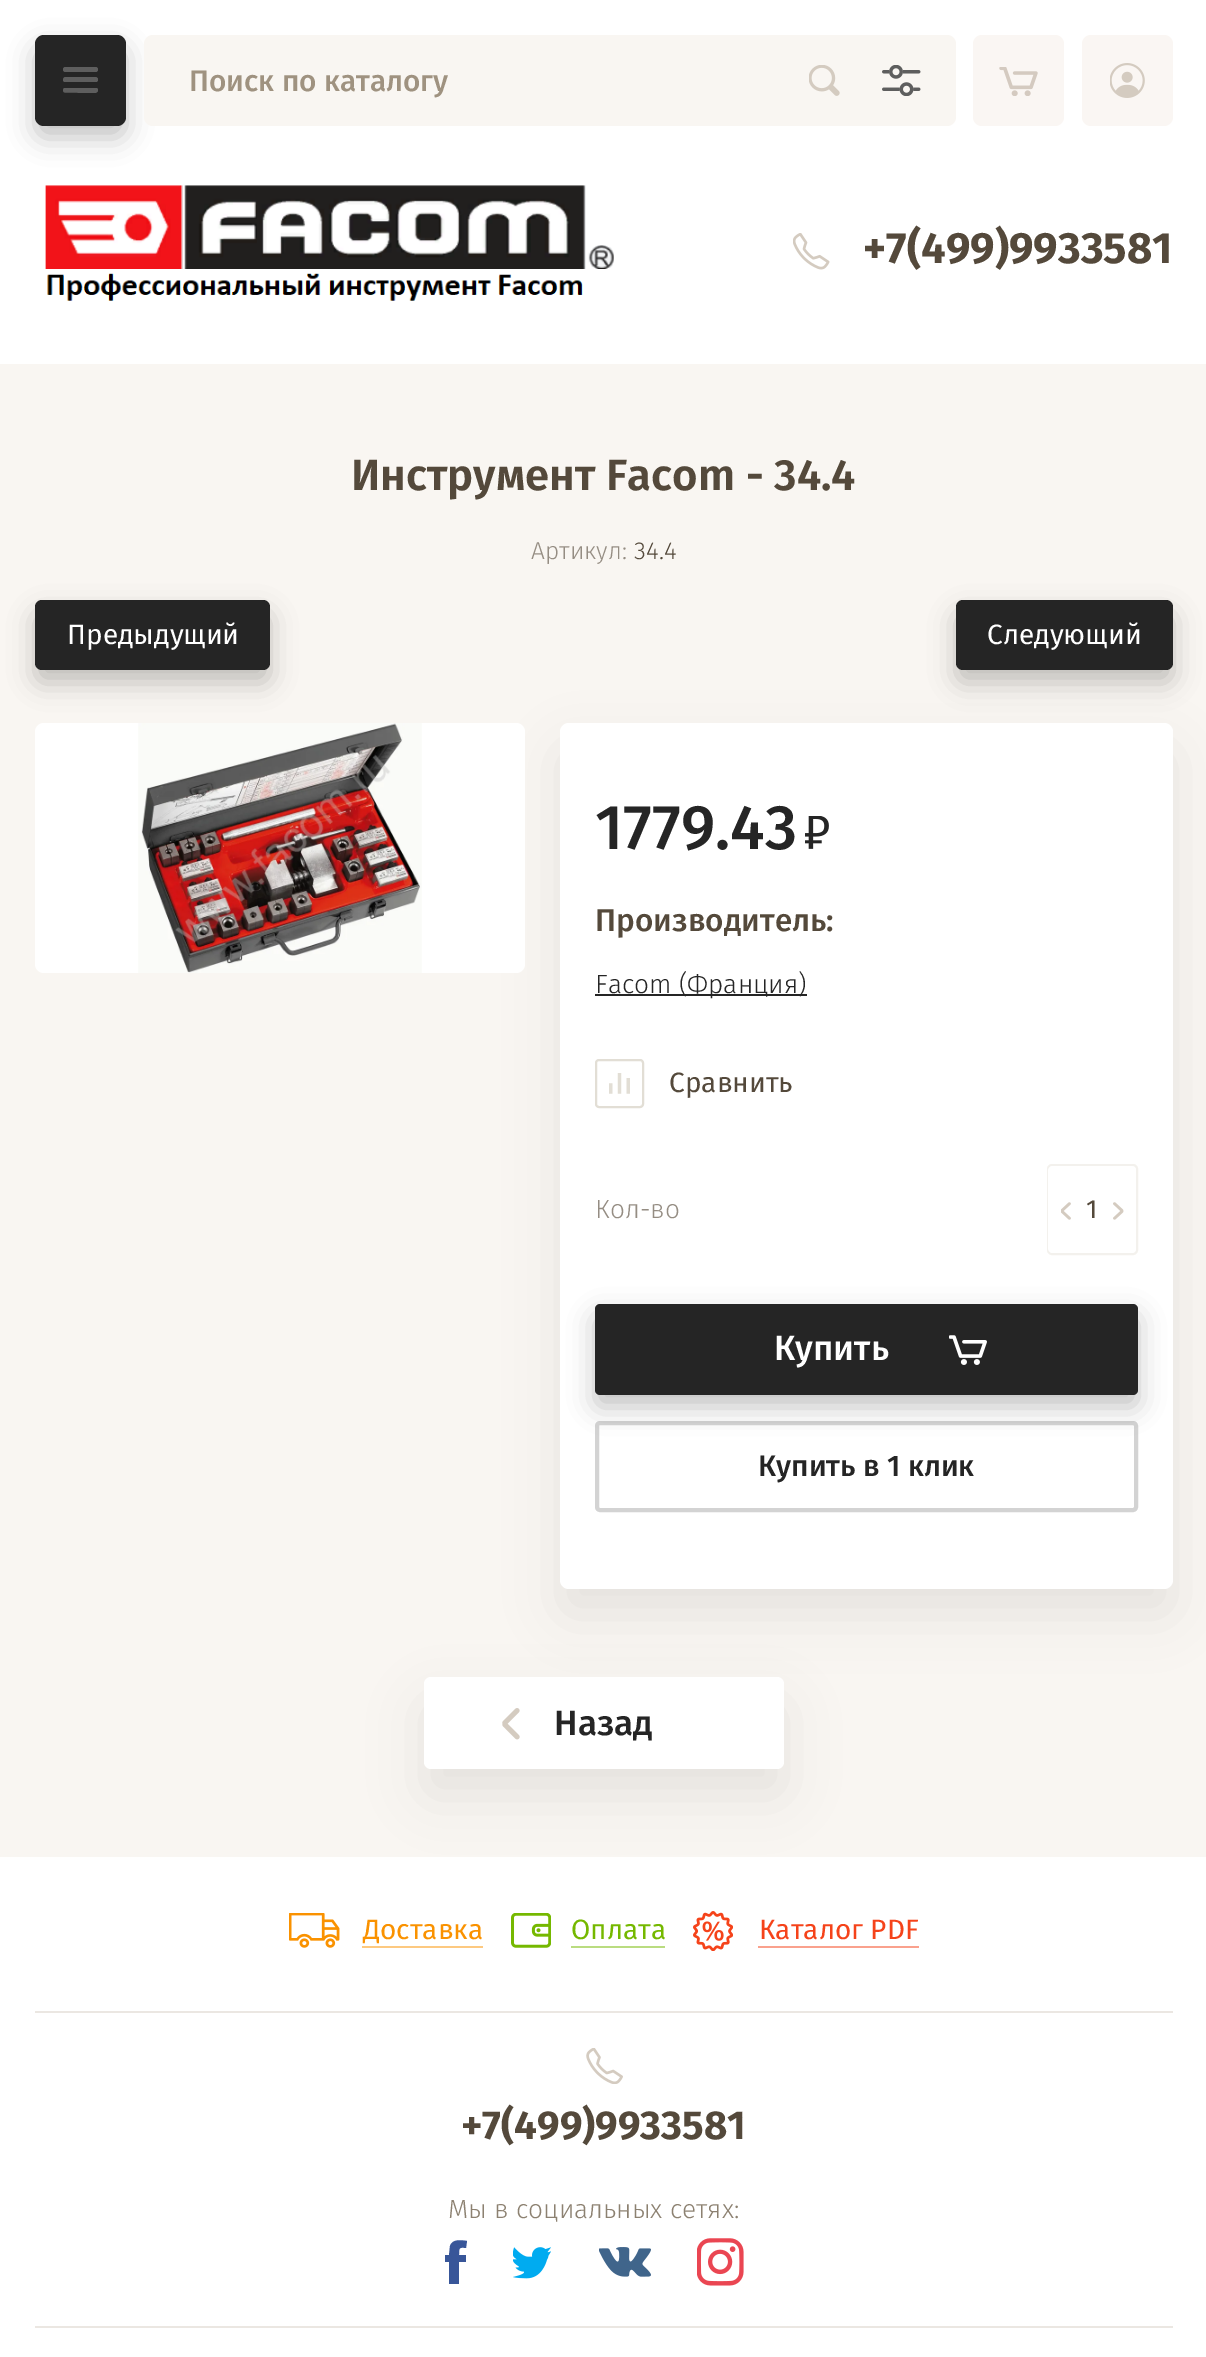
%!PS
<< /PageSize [1206 2357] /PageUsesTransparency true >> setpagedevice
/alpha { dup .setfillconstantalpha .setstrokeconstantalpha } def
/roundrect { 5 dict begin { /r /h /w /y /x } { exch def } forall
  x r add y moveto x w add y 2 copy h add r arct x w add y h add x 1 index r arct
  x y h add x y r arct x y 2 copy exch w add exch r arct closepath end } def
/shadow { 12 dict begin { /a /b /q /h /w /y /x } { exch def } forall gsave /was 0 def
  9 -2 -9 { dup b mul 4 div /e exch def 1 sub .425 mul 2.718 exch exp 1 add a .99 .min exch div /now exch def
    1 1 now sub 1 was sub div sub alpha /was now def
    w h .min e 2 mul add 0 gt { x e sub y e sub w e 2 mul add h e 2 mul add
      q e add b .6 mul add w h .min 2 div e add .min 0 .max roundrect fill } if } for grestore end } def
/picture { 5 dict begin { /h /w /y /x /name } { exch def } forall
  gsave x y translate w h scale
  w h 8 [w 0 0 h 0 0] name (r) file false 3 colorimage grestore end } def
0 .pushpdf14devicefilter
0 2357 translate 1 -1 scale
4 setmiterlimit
0.976 0.965 0.949 setrgbcolor
0 0 1206 2357 rectfill
1 setgray
0 0 1206 364 rectfill
0.145 setgray
35 47 91 91 9 13 0.27 shadow
35 35 91 91 9 roundrect fill
gsave
63 77 35 5 rectclip
0.369 setgray
newpath 65.5 77 moveto 90.5 77 lineto 92.5 77 98 76 98 79.5 curveto 98 83.5 92.5 82 90.5 82 curveto 64.5 82 lineto 62 81 63 77 65.5 77 curveto closepath fill
grestore
0.369 setgray
63 67 35 5 2.5 roundrect fill
gsave
63 88 35 5 rectclip
newpath 65.5 87.5 moveto 90.5 87.5 lineto 92.5 87.5 98 86.5 98 90 curveto 98 94 92.5 93 90.5 93 curveto 64.5 92.5 lineto 62 91.5 63 87.5 65.5 87.5 curveto closepath fill
grestore
0.976 0.965 0.949 setrgbcolor
144 35 812 91 9 roundrect fill
/FiraSans-Medium [29.75 0 0 -29.75 0 0] selectfont
0.624 0.573 0.502 setrgbcolor
189 91 moveto (Поиск по каталогу) show
(img1.rgb) 809 65 31 31 picture
(img2.rgb) 882 65 39 31 picture
0.98 0.965 0.953 setrgbcolor
973 35 91 91 9 roundrect fill
(img3.rgb) 999 67 39 29 picture
1082 35 91 91 9 roundrect fill
(img4.rgb) 1110 63 35 35 picture
(img5.rgb) 45 185 569 116 picture
(img6.rgb) 793 233 37 37 picture
/FiraSans-Bold [43.75 0 0 -43.75 0 0] selectfont
0.329 0.286 0.231 setrgbcolor
863 263 moveto (+7\(499\)9933581) show
/FiraSans-SemiBold [43.75 0 0 -43.75 0 0] selectfont
351 490 moveto (Инструмент Facom - 34.4) show
/FiraSans-Light [24.5 0 0 -24.5 0 0] selectfont
0.584 0.553 0.514 setrgbcolor
531 559 moveto (Артикул:) show
0.329 0.286 0.231 setrgbcolor
634 559 moveto (34.4) show
0.145 setgray
35 613 235 70 7 13 0.27 shadow
35 600 235 70 7 roundrect fill
/FiraSans-Regular [28 0 0 -28 0 0] selectfont
1 setgray
67 644 moveto (Предыдущий) show
0.145 setgray
956 613 217 70 7 13 0.27 shadow
956 600 217 70 7 roundrect fill
1 setgray
987 644 moveto (Следующий) show
0 setgray
560 749 613 866 9 26 0.07 shadow
1 setgray
35 723 490 250 9 roundrect fill
(img7.rgb) 138 723 284 250 picture
560 723 613 866 9 roundrect fill
/FiraSans-Medium [63 0 0 -63 0 0] selectfont
0.145 setgray
595 849 moveto (1779.43) show
(img8.rgb) 805 816 24 33 picture
/FiraSans-Medium [31.5 0 0 -31.5 0 0] selectfont
0.329 0.286 0.231 setrgbcolor
595 931 moveto (Производитель:) show
0.145 setgray
595 994 212 2 rectfill
/FiraSans-Light [26.25 0 0 -26.25 0 0] selectfont
595 993 moveto (Facom \(Франция\)) show
(img9.rgb) 609 1073 21 21 picture
0.886 0.871 0.835 setrgbcolor
2 setlinewidth
596 1060 47 47 3 roundrect stroke
/FiraSans-Regular [28 0 0 -28 0 0] selectfont
0.329 0.286 0.231 setrgbcolor
669 1092 moveto (Сравнить) show
/FiraSans-Light [26.25 0 0 -26.25 0 0] selectfont
0.584 0.553 0.514 setrgbcolor
595 1218 moveto (Кол-во) show
0.953 0.945 0.929 setrgbcolor
1048 1165 89 89 4 roundrect stroke
1 setgray
1048 1166 88 87 5 roundrect fill
(img10.rgb) 1061 1202 10 18 picture
/FiraSans-Regular [26.25 0 0 -26.25 0 0] selectfont
0.329 0.286 0.231 setrgbcolor
1086 1218 moveto (1) show
(img11.rgb) 1113 1202 11 18 picture
0.827 setgray
4 setlinewidth
597 1423 539 87 3 roundrect stroke
0.145 setgray
595 1316 543 91 5 13 0.27 shadow
595 1304 543 91 5 roundrect fill
/FiraSans-Medium [35 0 0 -35 0 0] selectfont
1 setgray
774 1360 moveto (Купить) show
(img12.rgb) 949 1335 38 30 picture
/FiraSans-Medium [29.75 0 0 -29.75 0 0] selectfont
0.145 setgray
758 1476 moveto (Купить в 1 клик) show
1 setgray
0 1857 1206 500 rectfill
0 setgray
424 1703 360 93 7 26 0.07 shadow
1 setgray
424 1677 360 92 7 roundrect fill
(img13.rgb) 502 1708 18 32 picture
/FiraSans-Medium [35 0 0 -35 0 0] selectfont
0.145 setgray
554 1735 moveto (Назад) show
0.922 0.906 0.886 setrgbcolor
35 2011 1138 2 rectfill
(img14.rgb) 289 1913 51 35 picture
/FiraSans-Regular [28 0 0 -28 0 0] selectfont
0.98 0.573 0 setrgbcolor
363 1939 moveto (Доставка) show
0.992 0.788 0.502 setrgbcolor
362 1946 121 2 rectfill
(img15.rgb) 511 1913 40 35 picture
0.459 0.722 0 setrgbcolor
571 1939 moveto (Оплата) show
0.729 0.863 0.502 setrgbcolor
571 1946 94 2 rectfill
(img16.rgb) 693 1911 40 40 picture
0.961 0.263 0.102 setrgbcolor
759 1939 moveto (Каталог PDF) show
0.98 0.631 0.553 setrgbcolor
758 1946 161 2 rectfill
0.922 0.906 0.886 setrgbcolor
35 2326 1138 2 rectfill
(img17.rgb) 586 2048 37 36 picture
/FiraSans-Bold [40.25 0 0 -40.25 0 0] selectfont
0.329 0.286 0.231 setrgbcolor
461 2139 moveto (+7\(499\)9933581) show
/FiraSans-Light [26.25 0 0 -26.25 0 0] selectfont
0.549 0.506 0.443 setrgbcolor
448 2218 moveto (Мы в социальных сетях:) show
gsave
445 2240 22 44 rectclip
0.22 0.337 0.6 setrgbcolor
newpath 467 2241 moveto 461 2240 452 2239 450 2246 curveto 449 2255 lineto 445 2255 lineto 445 2262 lineto 449 2262 lineto 449 2285 lineto 459 2285 lineto 459 2262 lineto 466 2262 lineto 466 2255 lineto 459 2255 lineto 459 2248 459 2247 466 2248 curveto closepath eofill
grestore
(img18.rgb) 513 2247 38 32 picture
(img19.rgb) 599 2247 52 30 picture
(img20.rgb) 697 2238 47 48 picture
.poppdf14devicefilter showpage
